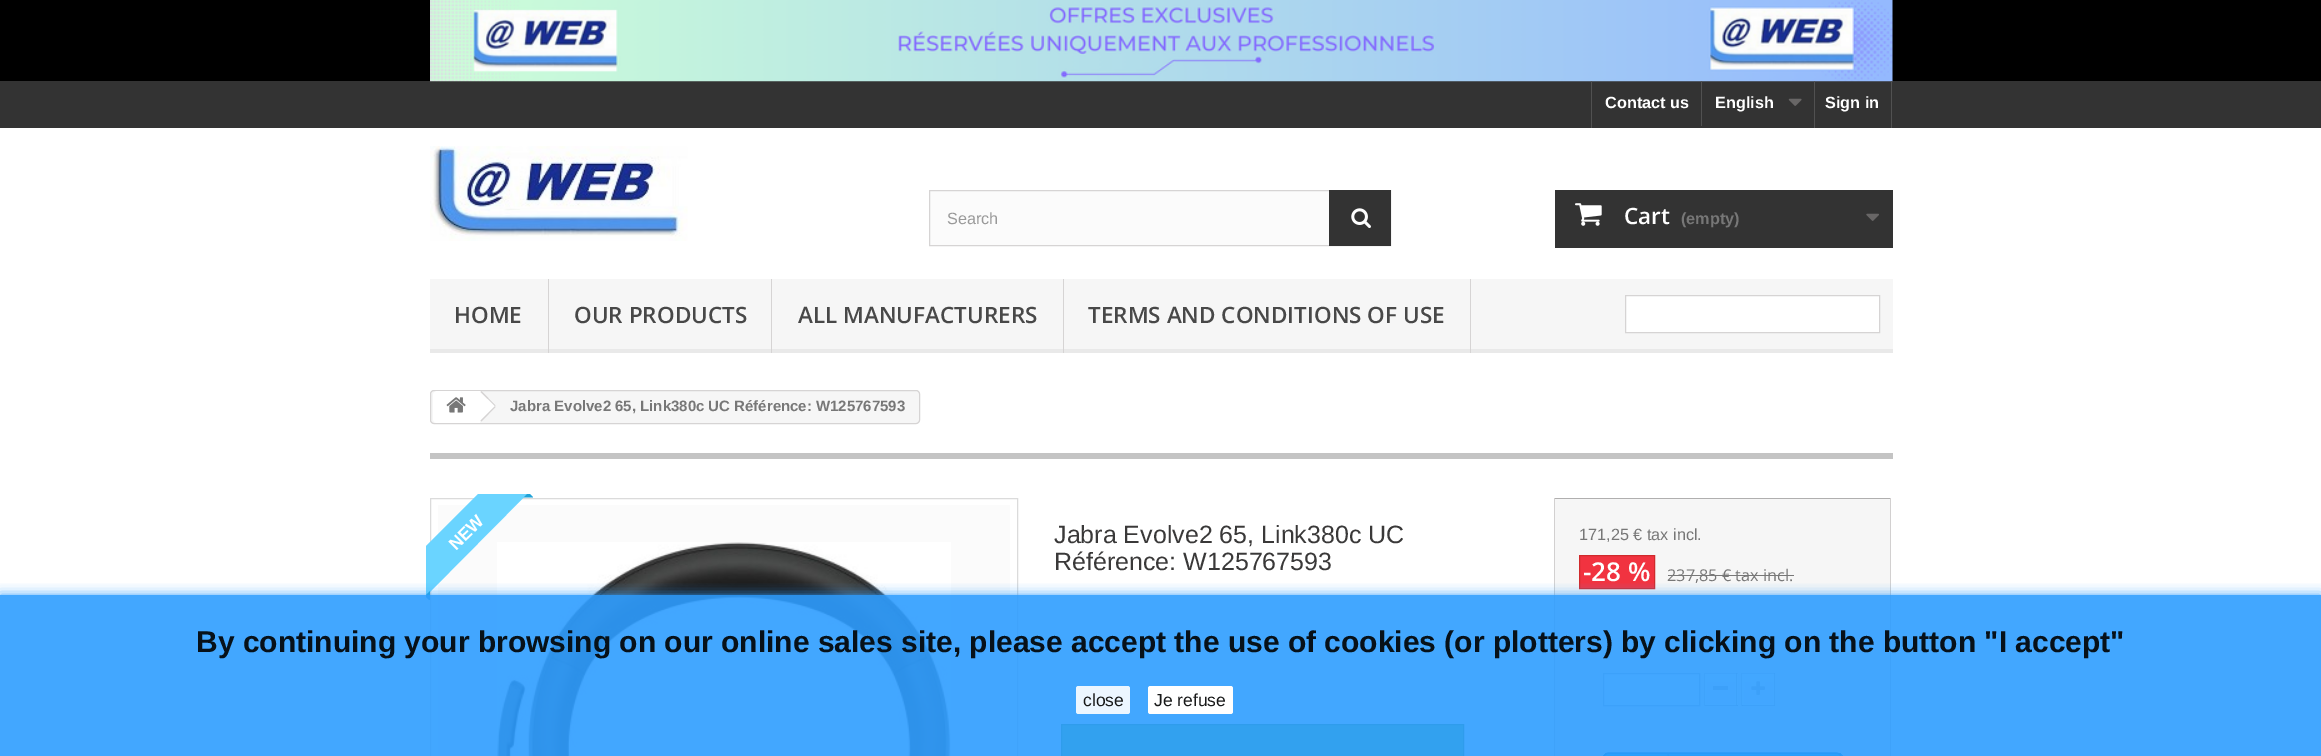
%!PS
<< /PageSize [2321 756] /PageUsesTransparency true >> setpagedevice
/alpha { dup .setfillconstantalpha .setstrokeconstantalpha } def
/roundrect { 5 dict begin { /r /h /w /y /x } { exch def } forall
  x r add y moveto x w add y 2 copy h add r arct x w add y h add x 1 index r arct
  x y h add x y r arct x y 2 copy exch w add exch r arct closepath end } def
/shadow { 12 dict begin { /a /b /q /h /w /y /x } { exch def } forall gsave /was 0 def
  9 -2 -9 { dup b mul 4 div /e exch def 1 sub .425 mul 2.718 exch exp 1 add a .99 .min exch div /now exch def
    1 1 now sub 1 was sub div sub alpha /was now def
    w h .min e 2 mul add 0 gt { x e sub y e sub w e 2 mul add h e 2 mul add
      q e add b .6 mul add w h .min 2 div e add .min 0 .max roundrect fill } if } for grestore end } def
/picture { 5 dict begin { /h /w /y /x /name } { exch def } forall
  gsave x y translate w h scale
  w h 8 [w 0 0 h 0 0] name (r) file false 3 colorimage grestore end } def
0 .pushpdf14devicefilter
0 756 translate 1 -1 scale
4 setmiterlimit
1 setgray
0 0 2321 756 rectfill
0 setgray
0 0 2321 81 rectfill
0.2 setgray
0 81 2321 47 rectfill
(img1.rgb) 430 0 1463 82 picture
0.318 setgray
1591 81 1 47 rectfill
/LiberationSans-Bold [16.25 0 0 -16.25 0 0] selectfont
1 setgray
1605 108 moveto (Contact us) show
0.318 setgray
1701 81 1 45 rectfill
1 setgray
1715 108 moveto (English) show
(img2.rgb) 1788 98 14 8 picture
0.318 setgray
1891 81 1 47 rectfill
1814 81 1 47 rectfill
1 setgray
1825 108 moveto (Sign in) show
(img3.rgb) 430 146 258 95 picture
0.984 setgray
930 191 399 54 rectfill
0.839 0.831 0.831 setrgbcolor
929.5 190.5 461 55 rectstroke
/LiberationSans-Regular [16.25 0 0 -16.25 0 0] selectfont
0.6 setgray
947 224 moveto (Search) show
0.2 setgray
1329 190 62 56 rectfill
(img4.rgb) 1351 208 20 20 picture
1555 190 338 58 rectfill
(img5.rgb) 1575 203 27 23 picture
/OpenSans-SemiBold [22.5 0 0 -22.5 0 0] selectfont
1 setgray
1624 224 moveto (Cart) show
/LiberationSans-Bold [16.25 0 0 -16.25 0 0] selectfont
0.467 setgray
1681 224 moveto (\(empty\)) show
(img6.rgb) 1866 213 13 8 picture
0.965 setgray
430 279 1463 70 rectfill
0.914 setgray
430 349 1463 4 rectfill
0.839 0.831 0.831 setrgbcolor
548 279 1 74 rectfill
/OpenSans-SemiBold [22.5 0 0 -22.5 0 0] selectfont
0.282 setgray
454 323 moveto (HOME) show
0.839 0.831 0.831 setrgbcolor
771 279 1 74 rectfill
0.282 setgray
574 323 moveto (OUR PRODUCTS) show
0.839 0.831 0.831 setrgbcolor
1063 279 1 74 rectfill
0.282 setgray
798 323 moveto (ALL MANUFACTURERS) show
0.839 0.831 0.831 setrgbcolor
1470 279 1 74 rectfill
0.282 setgray
1088 323 moveto (TERMS AND CONDITIONS OF USE) show
1 setgray
newpath 1625.5 295.5 moveto 1879.5 295.5 lineto 1879.5 332.5 lineto 1625.5 332.5 lineto closepath gsave fill grestore
0.839 0.831 0.831 setrgbcolor
stroke
0.965 setgray
430.5 390.5 489 33 3.5 roundrect gsave fill grestore
0.839 0.831 0.831 setrgbcolor
stroke
1 setgray
newpath 437 391 moveto 480 391 lineto 480 423 lineto 437 423 lineto 435 423 433 421 433 419 curveto 433 395 lineto 433 393 435 391 437 391 curveto closepath fill
newpath 482.5 392 moveto 495 404.5 lineto 495.5 405.5 495.5 407 495 408 curveto 482.5 420.5 lineto 481.5 421.5 480 421.5 479 420.5 curveto 466.5 408 lineto 465.5 407 465.5 405.5 466.5 404.5 curveto 479 392 lineto 480 391 481.5 391 482.5 392 curveto closepath fill
(img7.rgb) 446 397 20 16 picture
0.839 0.831 0.831 setrgbcolor
newpath 481.5 391 moveto 495.5 405.5 lineto 495 406 lineto 480.5 392 lineto closepath 495 406 moveto 495.5 407 lineto 481.5 421.5 lineto 480.5 420.5 lineto closepath fill
/LiberationSans-Bold [15 0 0 -15 0 0] selectfont
0.467 setgray
510 411 moveto (Jabra Evolve2 65, Link380c UC Référence: W125767593) show
0.769 setgray
430 453 1463 6 rectfill
0.859 setgray
430.5 498.5 587 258 rectstroke
0.984 setgray
438 505 572 251 rectfill
(img8.rgb) 497 542 454 214 picture
gsave
426 494 107 106 rectclip
0.416 0.831 1 setrgbcolor
newpath 396 576 moveto 511 461 lineto 535 486 lineto 421 601 lineto closepath fill
0.129 0.639 0.847 setrgbcolor
newpath 533.5 497.5 moveto 523.5 497.5 lineto 528.5 492.5 lineto closepath fill
grestore
/LiberationSans-Bold [17.5 0 0 -17.5 0 0] selectfont
1 setgray
gsave 456 551 translate -45 rotate 0 0 moveto (NEW) show grestore
gsave
426 494 107 106 rectclip
0.129 0.639 0.847 setrgbcolor
newpath 430 591 moveto 430 601 lineto 425 596 lineto closepath fill
grestore
/LiberationSans-Regular [25 0 0 -25 0 0] selectfont
0.227 0.224 0.224 setrgbcolor
1054 543 moveto (Jabra Evolve2 65, Link380c UC) show
1054 570 moveto (Référence: W125767593) show
0.333 0.776 0.369 setrgbcolor
newpath 1061.5 724.5 moveto 1463.5 724.5 lineto 1463.5 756.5 lineto 1061.5 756.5 lineto closepath gsave fill grestore
0.212 0.58 0.243 setrgbcolor
stroke
0.965 setgray
1555 499 335 257 rectfill
0.69 0.686 0.686 setrgbcolor
1554 498 337 1 rectfill
0.824 0.816 0.816 setrgbcolor
1890 498 1 258 rectfill
1554 498 1 258 rectfill
/LiberationSans-Regular [16.25 0 0 -16.25 0 0] selectfont
0.467 setgray
1579 540 moveto (171,25 € tax incl.) show
0.945 0.2 0.251 setrgbcolor
newpath 1579.5 555.5 moveto 1654.5 555.5 lineto 1654.5 588.5 lineto 1579.5 588.5 lineto closepath gsave fill grestore
0.816 0.165 0.173 setrgbcolor
stroke
/OpenSans-SemiBold [26 0 0 -26 0 0] selectfont
1 setgray
1583 581 moveto (-28 %) show
/OpenSans-Regular [16.25 0 0 -16.25 0 0] selectfont
0.467 setgray
1667 581 moveto (237,85 € tax incl.) show
1668 575 126 1 rectfill
1 setgray
newpath 1603.5 673.5 moveto 1699.5 673.5 lineto 1699.5 705.5 lineto 1603.5 705.5 lineto closepath gsave fill grestore
0.741 0.761 0.788 setrgbcolor
stroke
1 setgray
1737 674 1 31 rectfill
0.871 0.863 0.863 setrgbcolor
1704 673 34 1 rectfill
0.757 0.749 0.749 setrgbcolor
1736 673 1 33 rectfill
0.71 0.706 0.706 setrgbcolor
1704 705 34 1 rectfill
0.855 0.847 0.847 setrgbcolor
1704 673 1 33 rectfill
gsave newpath 1706 675 moveto 1735 675 lineto 1735 704 lineto 1706 704 lineto closepath clip newpath
<< /ShadingType 2 /ColorSpace /DeviceRGB /Coords [1721 675 1721 704] /Extend [true true] /Function << /FunctionType 2 /Domain [0 1] /C0 [1 1 1] /C1 [0.984 0.984 0.984] /N 1 >> >> shfill grestore
1 setgray
1705.5 674.5 30 30 rectstroke
0.753 setgray
1713 686 15 4 rectfill
1 setgray
1742 674 1 31 rectfill
0.871 0.863 0.863 setrgbcolor
1741 673 34 1 rectfill
0.757 0.749 0.749 setrgbcolor
1774 673 1 33 rectfill
0.71 0.706 0.706 setrgbcolor
1741 705 34 1 rectfill
0.855 0.847 0.847 setrgbcolor
1741 673 1 33 rectfill
gsave newpath 1744 675 moveto 1773 675 lineto 1773 704 lineto 1744 704 lineto closepath clip newpath
<< /ShadingType 2 /ColorSpace /DeviceRGB /Coords [1758 675 1758 704] /Extend [true true] /Function << /FunctionType 2 /Domain [0 1] /C0 [1 1 1] /C1 [0.984 0.984 0.984] /N 1 >> >> shfill grestore
1 setgray
1743.5 674.5 30 30 rectstroke
(img9.rgb) 1751 681 14 14 picture
gsave
1603 753 240 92 6 roundrect clip newpath
gsave newpath 1603 753 moveto 1843 753 lineto 1843 754 lineto 1603 754 lineto closepath clip newpath
<< /ShadingType 2 /ColorSpace /DeviceRGB /Coords [1723 664 1723 754] /Extend [true true] /Function << /FunctionType 2 /Domain [0 1] /C0 [0 0.604 0.816] /C1 [0 0.478 0.718] /N 1 >> >> shfill grestore
gsave newpath 1603 754 moveto 1843 754 lineto 1843 756 lineto 1603 756 lineto closepath clip newpath
<< /ShadingType 2 /ColorSpace /DeviceRGB /Coords [1723 754 1723 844] /Extend [true true] /Function << /FunctionType 2 /Domain [0 1] /C0 [0 0.604 0.816] /C1 [0 0.478 0.718] /N 1 >> >> shfill grestore
grestore
0 0.475 0.714 setrgbcolor
1.2 setlinewidth
newpath 1605 755 moveto 1606 753.5 1607.5 753 1609 753 curveto 1836 753 lineto 1837.5 753 1839 753.5 1840 755 curveto stroke
0 0.435 0.659 setrgbcolor
newpath 1840 755 moveto 1842 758 lineto 1842 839.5 lineto 1840 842.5 lineto stroke
newpath 1605 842.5 moveto 1603 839.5 lineto 1603 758 lineto 1605 755 lineto stroke
0.024 0.698 0.902 setrgbcolor
1 setlinewidth
1604.5 754.5 236 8 5.5 roundrect stroke
newpath 1610 754.5 moveto 1667.5 754.5 lineto 1667.5 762.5 lineto 1610 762.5 lineto 1607 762.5 1604.5 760 1604.5 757 curveto 1604.5 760 lineto 1604.5 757 1607 754.5 1610 754.5 curveto closepath stroke
(img10.rgb) 1667 754 2 2 picture
gsave
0 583 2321 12 rectclip
0.18 0.616 1 setrgbcolor
0 595 2321 161 0 6 0.9 shadow
grestore
0.9 alpha
0.18 0.616 1 setrgbcolor
0 595 2321 161 rectfill
/LiberationSans-Bold [30 0 0 -30 0 0] selectfont
1 alpha
0.027 0.067 0.098 setrgbcolor
196 652 moveto (By continuing your browsing on our online sales site, please accept the use of cookies \(or plotters\) by clicking on the button "I accept") show
0.9 alpha
1 setgray
1076 686 54 28 2.5 roundrect fill
/LiberationSans-Regular [17.5 0 0 -17.5 0 0] selectfont
1 alpha
0.094 0.098 0.098 setrgbcolor
1083 706 moveto (close) show
1 setgray
1148 686 85 28 2.5 roundrect fill
0.094 0.098 0.098 setrgbcolor
1154 706 moveto (Je refuse) show
.poppdf14devicefilter showpage
